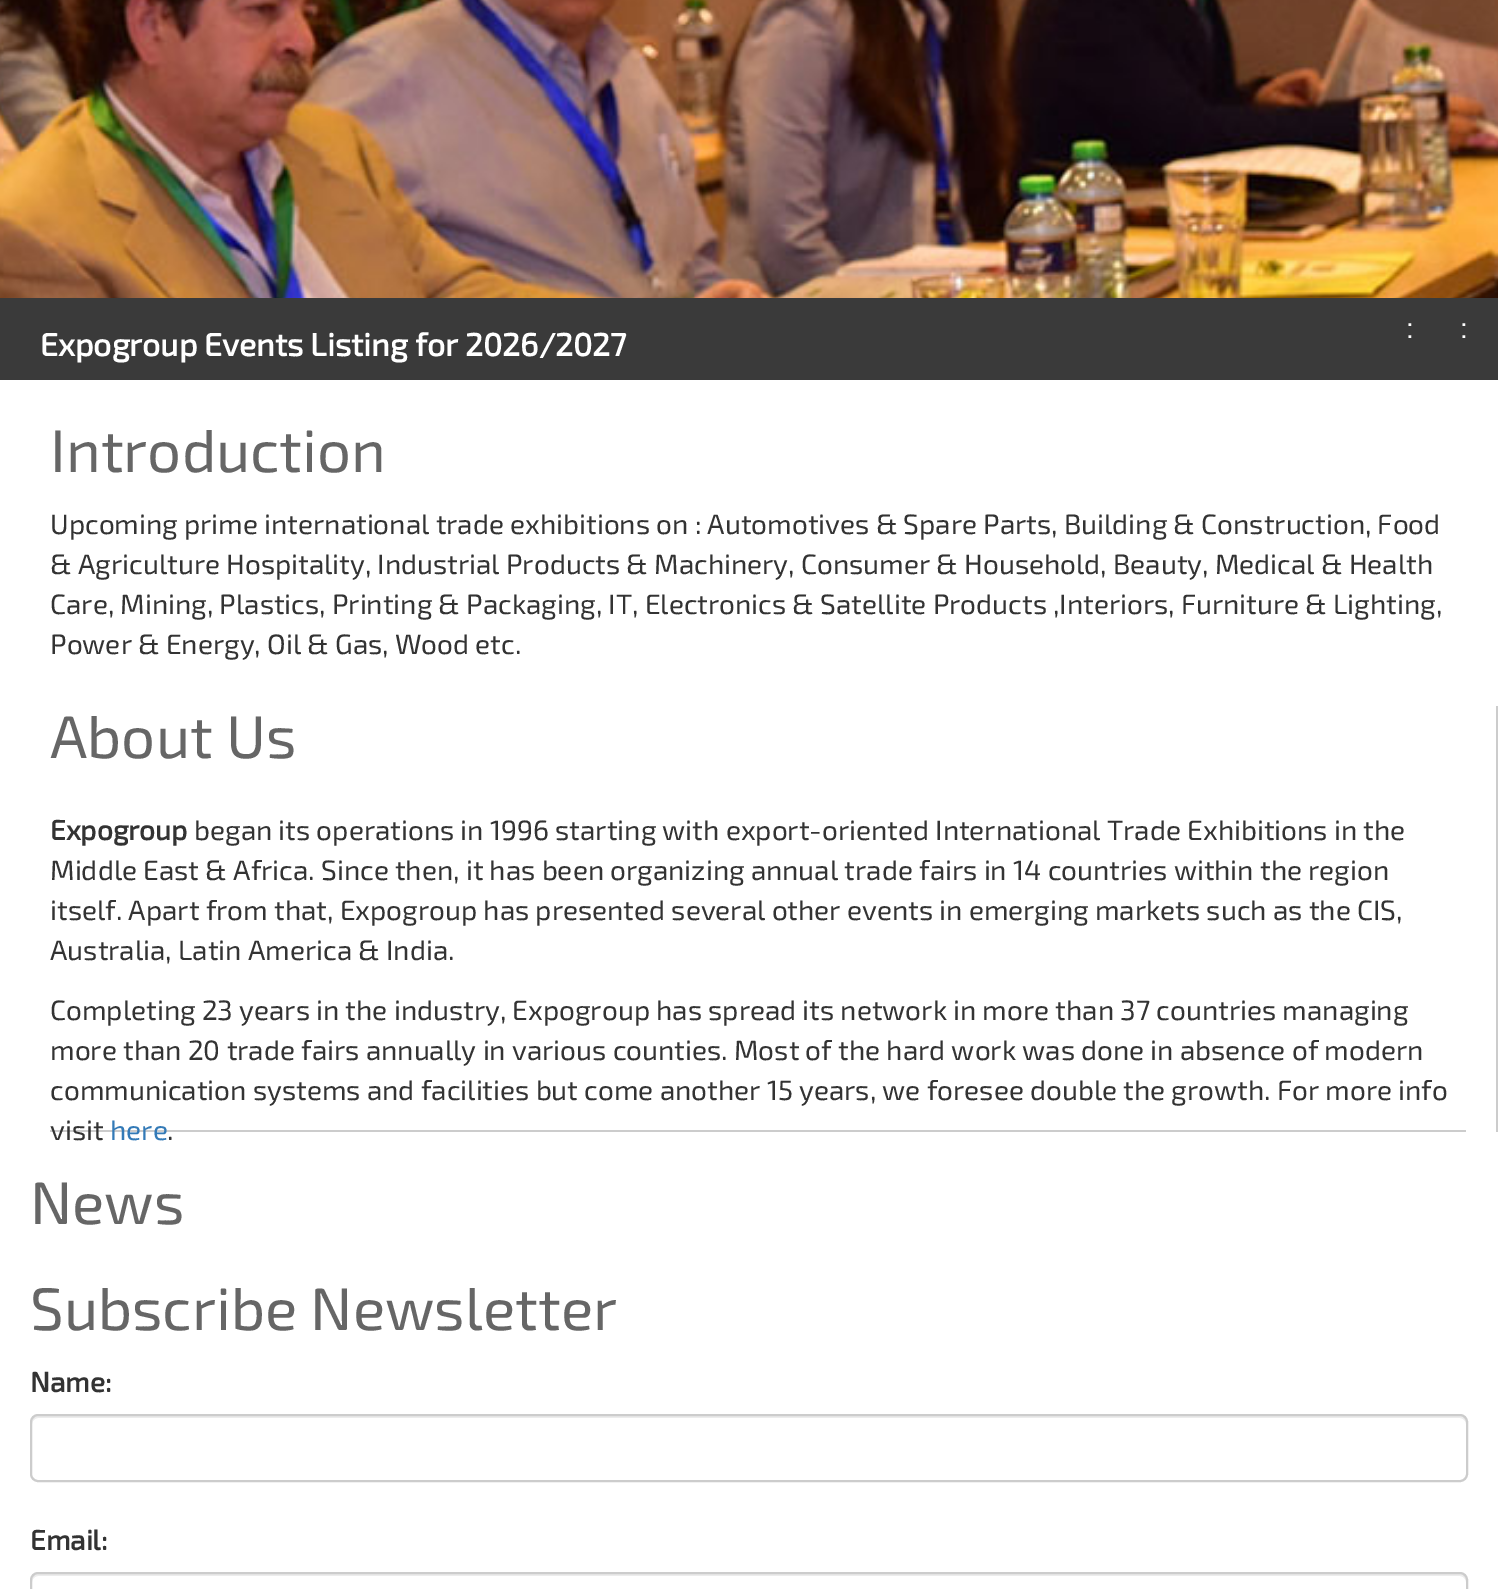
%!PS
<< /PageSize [1498 1589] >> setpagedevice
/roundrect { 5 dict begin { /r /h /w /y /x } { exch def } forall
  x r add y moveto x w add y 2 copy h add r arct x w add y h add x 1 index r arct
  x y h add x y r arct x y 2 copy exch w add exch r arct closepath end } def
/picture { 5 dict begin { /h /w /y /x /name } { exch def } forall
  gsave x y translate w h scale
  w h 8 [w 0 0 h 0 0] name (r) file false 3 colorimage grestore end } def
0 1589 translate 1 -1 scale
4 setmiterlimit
1 setgray
0 0 1498 1589 rectfill
(img1.rgb) 0 0 1498 298 picture
0.227 setgray
0 298 1498 82 rectfill
/LiberationSans-Regular [28 0 0 -28 0 0] selectfont
1 setgray
1406 338 moveto (:) show
1460 338 moveto (:) show
/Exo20-Bold [32 0 0 -32 0 0] selectfont
40 356 moveto (Expogroup Events Listing for 2026/2027) show
/Exo20-Regular [60 0 0 -60 0 0] selectfont
0.4 setgray
50 472 moveto (Introduction) show
/Exo20-Regular [28 0 0 -28 0 0] selectfont
0.2 setgray
50 534 moveto (Upcoming prime international trade exhibitions on : Automotives & Spare Parts, Building & Construction, Food) show
50 574 moveto (& Agriculture Hospitality, Industrial Products & Machinery, Consumer & Household, Beauty, Medical & Health) show
50 614 moveto (Care, Mining, Plastics, Printing & Packaging, IT, Electronics & Satellite Products ,Interiors, Furniture & Lighting,) show
50 654 moveto (Power & Energy, Oil & Gas, Wood etc.) show
0.8 setgray
1496 706 2 426 rectfill
/Exo20-Regular [60 0 0 -60 0 0] selectfont
0.4 setgray
50 758 moveto (About Us) show
0.8 setgray
50 1130 1416 2 rectfill
/Exo20-Bold [28 0 0 -28 0 0] selectfont
0.2 setgray
50 840 moveto (Expogroup) show
/Exo20-Regular [28 0 0 -28 0 0] selectfont
194 840 moveto (began its operations in 1996 starting with export-oriented International Trade Exhibitions in the) show
50 880 moveto (Middle East & Africa. Since then, it has been organizing annual trade fairs in 14 countries within the region) show
50 920 moveto (itself. Apart from that, Expogroup has presented several other events in emerging markets such as the CIS,) show
50 960 moveto (Australia, Latin America & India.) show
50 1020 moveto (Completing 23 years in the industry, Expogroup has spread its network in more than 37 countries managing) show
50 1060 moveto (more than 20 trade fairs annually in various counties. Most of the hard work was done in absence of modern) show
50 1100 moveto (communication systems and facilities but come another 15 years, we foresee double the growth. For more info) show
50 1140 moveto (visit) show
0.2 0.478 0.718 setrgbcolor
110 1140 moveto (here) show
0.2 setgray
167 1140 moveto (.) show
/Exo20-Regular [60 0 0 -60 0 0] selectfont
0.4 setgray
30 1224 moveto (News) show
30 1330 moveto (Subscribe Newsletter) show
/Exo20-Bold [28 0 0 -28 0 0] selectfont
0.2 setgray
30 1392 moveto (Name:) show
0.925 setgray
newpath 38 1418 moveto 1460 1418 lineto 1463 1418 1466 1421 1466 1424 curveto 1466 1420 1465 1416 1460 1416 curveto 38 1416 lineto 33 1416 32 1420 32 1424 curveto 32 1421 35 1418 38 1418 curveto closepath fill
0.8 setgray
2 setlinewidth
31 1415 1436 66 7 roundrect stroke
0.2 setgray
30 1550 moveto (Email:) show
0.925 setgray
newpath 38 1576 moveto 1460 1576 lineto 1463 1576 1466 1579 1466 1582 curveto 1466 1578 1465 1574 1460 1574 curveto 38 1574 lineto 33 1574 32 1578 32 1582 curveto 32 1579 35 1576 38 1576 curveto closepath fill
0.8 setgray
31 1573 1436 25 7 roundrect stroke
showpage
